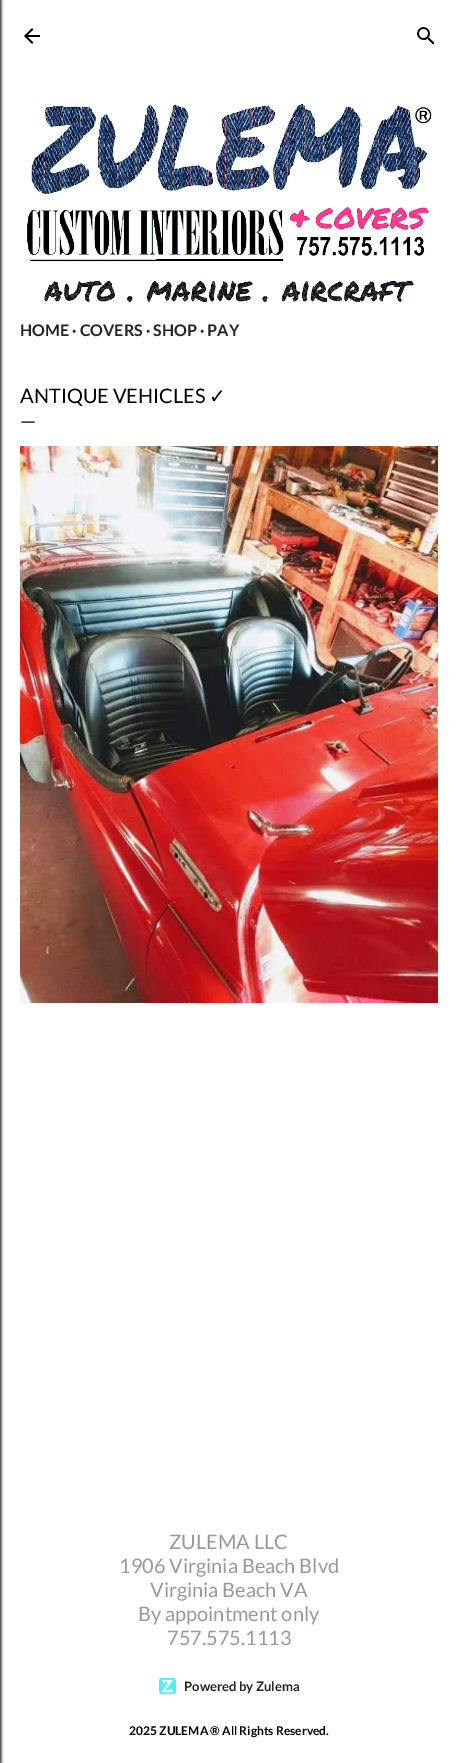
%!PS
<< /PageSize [458 1763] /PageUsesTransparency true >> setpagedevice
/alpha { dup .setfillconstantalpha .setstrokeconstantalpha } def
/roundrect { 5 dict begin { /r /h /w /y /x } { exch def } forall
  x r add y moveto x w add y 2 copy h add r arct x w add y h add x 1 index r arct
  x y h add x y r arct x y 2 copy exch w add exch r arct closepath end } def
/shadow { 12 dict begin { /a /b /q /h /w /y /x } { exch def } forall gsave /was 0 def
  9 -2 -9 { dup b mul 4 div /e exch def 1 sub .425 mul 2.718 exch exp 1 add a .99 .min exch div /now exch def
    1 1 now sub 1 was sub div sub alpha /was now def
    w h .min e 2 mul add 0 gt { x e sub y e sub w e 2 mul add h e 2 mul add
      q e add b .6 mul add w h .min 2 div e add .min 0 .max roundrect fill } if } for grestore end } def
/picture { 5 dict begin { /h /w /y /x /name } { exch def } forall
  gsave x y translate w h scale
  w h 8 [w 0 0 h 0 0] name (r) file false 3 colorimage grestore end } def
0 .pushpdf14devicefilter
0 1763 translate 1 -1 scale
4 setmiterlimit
1 setgray
0 0 458 1763 rectfill
0 setgray
-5 0 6 1763 0 1.5 1 shadow
(img1.rgb) 24 28 16 16 picture
(img2.rgb) 417 27 18 18 picture
(img3.rgb) 26 103 406 200 picture
/Lato-Bold [16 0 0 -16 0 0] selectfont
0.145 setgray
20 336 moveto (HOME · COVERS · SHOP · PAY) show
/Lato-Regular [20 0 0 -20 0 0] selectfont
0 setgray
20 403 moveto (ANTIQUE VEHICLES) show
/DejaVuSans-Regular [20 0 0 -20 0 0] selectfont
209 403 moveto (✓) show
/Lato-Regular [20 0 0 -20 0 0] selectfont
20 428 moveto (—) show
(img4.rgb) 20 446 418 557 picture
0.6 setgray
169 1549 moveto (ZULEMA LLC) show
119 1573 moveto (1906 Virginia Beach Blvd) show
150 1597 moveto (Virginia Beach VA) show
138 1621 moveto (By appointment only) show
167 1645 moveto (757.575.1113) show
(img5.rgb) 159 1678 17 16 picture
/Lato-Bold [13 0 0 -13 0 0] selectfont
0.145 setgray
184 1691 moveto (Powered by Zulema) show
/Lato-Bold [12 0 0 -12 0 0] selectfont
0 setgray
129 1735 moveto (2025 ZULEMA ® All Rights Reserved.) show
.poppdf14devicefilter showpage
